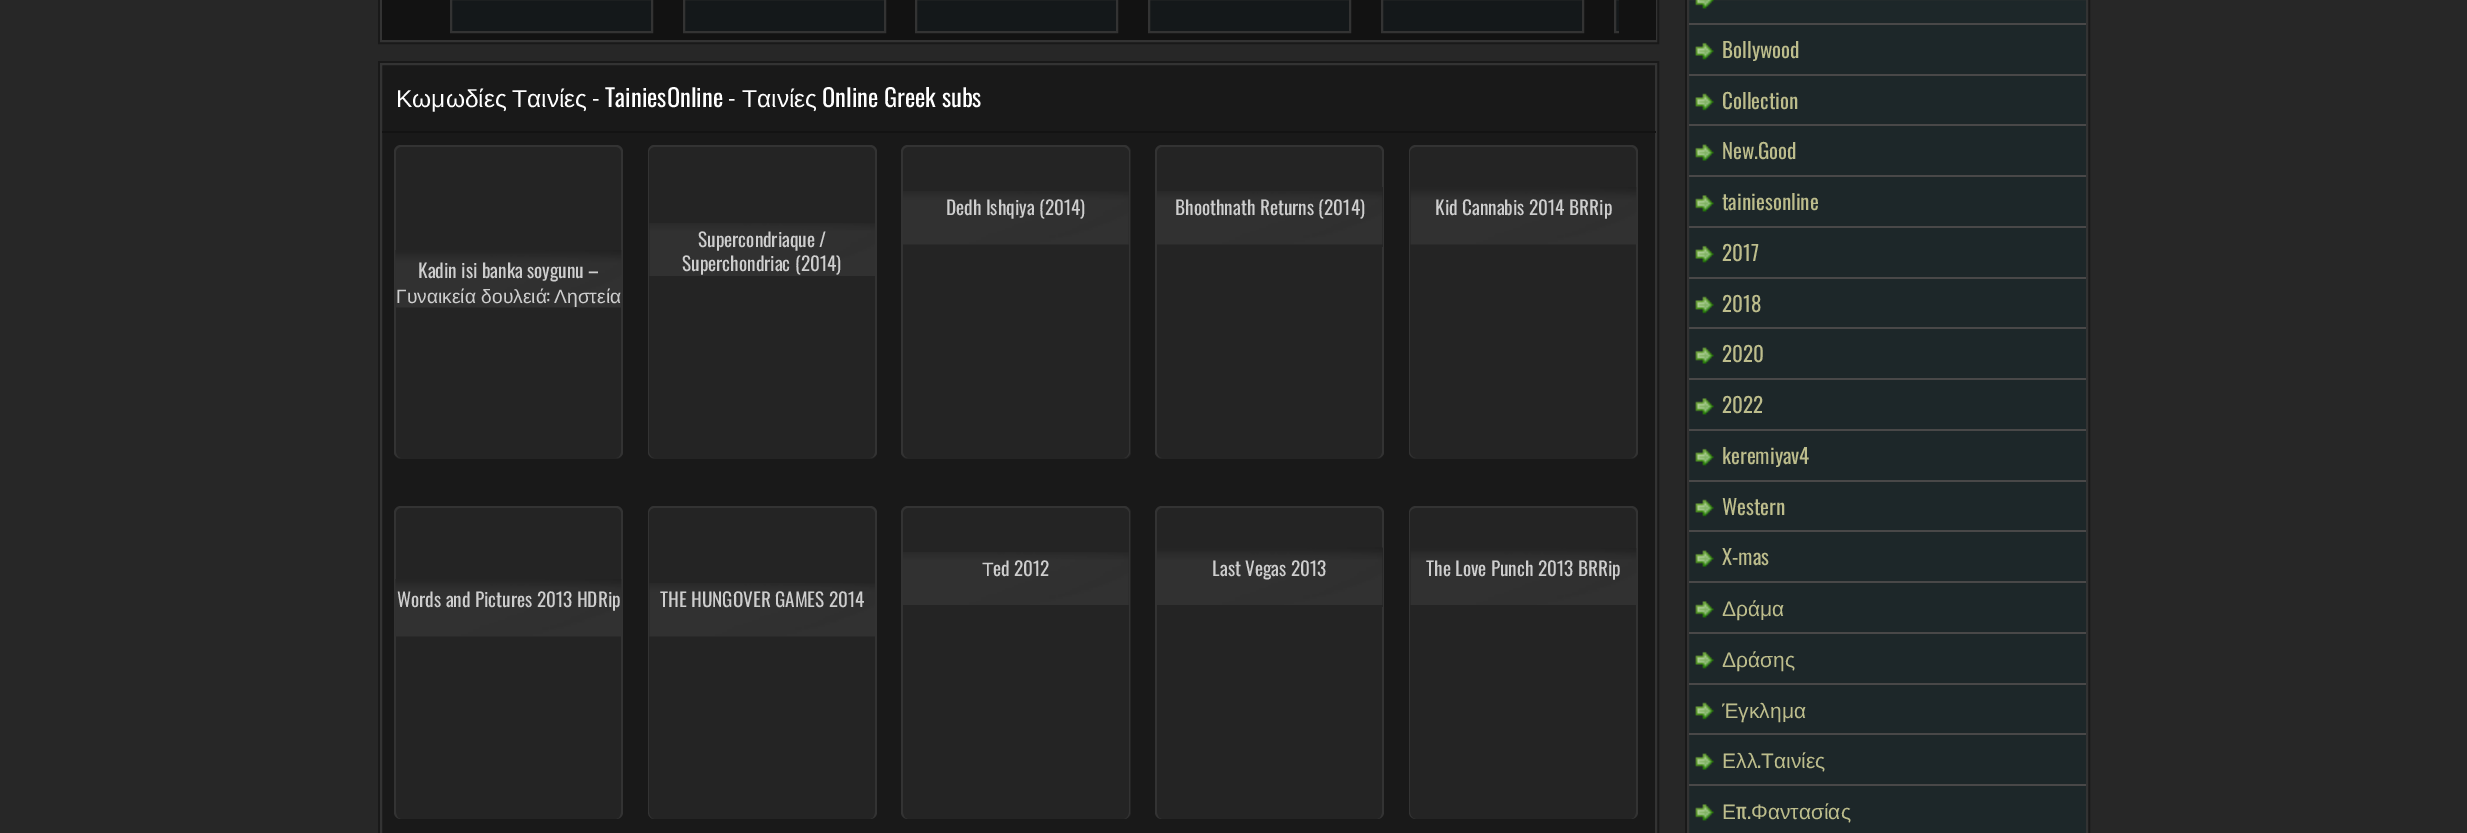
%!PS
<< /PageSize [2467 833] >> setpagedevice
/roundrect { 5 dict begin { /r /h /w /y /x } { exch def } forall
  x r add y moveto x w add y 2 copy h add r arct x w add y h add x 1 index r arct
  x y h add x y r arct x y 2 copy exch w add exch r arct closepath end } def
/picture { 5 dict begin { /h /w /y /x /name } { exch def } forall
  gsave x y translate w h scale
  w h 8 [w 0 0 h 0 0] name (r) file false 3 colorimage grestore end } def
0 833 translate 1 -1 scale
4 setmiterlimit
0.153 setgray
0 0 2467 833 rectfill
0.098 setgray
2 setlinewidth
379 -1 1279 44 rectstroke
0.2 setgray
381 -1 1275 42 rectstroke
0.071 setgray
382 0 1274 40 rectfill
0.078 0.094 0.102 setrgbcolor
newpath 451 -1 moveto 652 -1 lineto 652 32 lineto 451 32 lineto closepath gsave fill grestore
0.2 setgray
stroke
0.078 0.094 0.102 setrgbcolor
newpath 684 -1 moveto 885 -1 lineto 885 32 lineto 684 32 lineto closepath gsave fill grestore
0.2 setgray
stroke
0.078 0.094 0.102 setrgbcolor
newpath 916 -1 moveto 1117 -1 lineto 1117 32 lineto 916 32 lineto closepath gsave fill grestore
0.2 setgray
stroke
0.078 0.094 0.102 setrgbcolor
newpath 1149 -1 moveto 1350 -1 lineto 1350 32 lineto 1149 32 lineto closepath gsave fill grestore
0.2 setgray
stroke
0.078 0.094 0.102 setrgbcolor
newpath 1382 -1 moveto 1583 -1 lineto 1583 32 lineto 1382 32 lineto closepath gsave fill grestore
0.2 setgray
stroke
0.078 0.094 0.102 setrgbcolor
1616 0 3 33 rectfill
0.098 setgray
1686 -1 403 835 rectstroke
0.114 0.153 0.161 setrgbcolor
newpath 1688 -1 moveto 2087 -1 lineto 2087 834 lineto 1688 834 lineto closepath gsave fill grestore
0.2 setgray
stroke
(img10.rgb) 1695 0 19 9 picture
0.286 0.282 0.282 setrgbcolor
1689 23 397 2 rectfill
gsave
406 0 1213 40 rectclip
0.2 setgray
1615 -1 201 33 rectstroke
grestore
0.098 setgray
379 62 1279 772 rectstroke
newpath 381 64 moveto 1656 64 lineto 1656 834 lineto 381 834 lineto closepath gsave fill grestore
0.2 setgray
stroke
0.075 setgray
382 131 1274 2 rectfill
/LiberationSans-Regular [24.5 0 0 -24.5 0 0] selectfont
1 setgray
396 107 moveto (Κωμωδίες) show
512 107 moveto (Ταινίες) show
/Oswald-Regular [24.5 0 0 -24.5 0 0] selectfont
592 107 moveto (- TainiesOnline -) show
/LiberationSans-Regular [24.5 0 0 -24.5 0 0] selectfont
742 107 moveto (Ταινίες) show
/Oswald-Regular [24.5 0 0 -24.5 0 0] selectfont
822 107 moveto (Online Greek subs) show
0.141 setgray
901 145 230 314 7 roundrect fill
0.2 setgray
newpath 908 145 moveto 1124 145 lineto 1127 145 1130 148 1130 152 curveto 1130 452 lineto 1130 455 1127 458 1124 458 curveto 908 458 lineto 904 458 901 455 901 452 curveto 901 152 lineto 901 148 904 145 908 145 curveto closepath 908 147 moveto 1124 147 lineto 1126 147 1129 149 1129 152 curveto 1129 452 lineto 1129 455 1126 458 1124 458 curveto 908 458 lineto 905 458 903 455 903 452 curveto 903 152 lineto 903 149 905 147 908 147 curveto closepath eofill
(img1.rgb) 903 191 226 54 picture
/Oswald-Regular [19.25 0 0 -19.25 0 0] selectfont
0.808 setgray
946 215 moveto (Dedh Ishqiya \(2014\)) show
0.141 setgray
1155 145 229 314 7 roundrect fill
0.2 setgray
newpath 1162 145 moveto 1377 145 lineto 1381 145 1384 148 1384 152 curveto 1384 452 lineto 1384 455 1381 458 1377 458 curveto 1162 458 lineto 1158 458 1155 455 1155 452 curveto 1155 152 lineto 1155 148 1158 145 1162 145 curveto closepath 1162 147 moveto 1377 147 lineto 1380 147 1382 149 1382 152 curveto 1382 452 lineto 1382 455 1380 458 1377 458 curveto 1162 458 lineto 1159 458 1157 455 1157 452 curveto 1157 152 lineto 1157 149 1159 147 1162 147 curveto closepath eofill
0.141 setgray
1382 187 1 60 rectfill
(img2.rgb) 1157 191 226 54 picture
0.808 setgray
1175 215 moveto (Bhoothnath Returns \(2014\)) show
0.141 setgray
1409 145 229 314 7 roundrect fill
0.2 setgray
newpath 1416 145 moveto 1631 145 lineto 1635 145 1638 148 1638 152 curveto 1638 452 lineto 1638 455 1635 458 1631 458 curveto 1416 458 lineto 1412 458 1409 455 1409 452 curveto 1409 152 lineto 1409 148 1412 145 1416 145 curveto closepath 1416 147 moveto 1631 147 lineto 1634 147 1636 149 1636 152 curveto 1636 452 lineto 1636 455 1634 458 1631 458 curveto 1416 458 lineto 1413 458 1410 455 1410 452 curveto 1410 152 lineto 1410 149 1413 147 1416 147 curveto closepath eofill
(img3.rgb) 1410 187 227 58 picture
0.808 setgray
1435 215 moveto (Kid Cannabis 2014 BRRip) show
0.141 setgray
648 145 229 314 7 roundrect fill
0.2 setgray
newpath 654 145 moveto 870 145 lineto 874 145 877 148 877 152 curveto 877 452 lineto 877 455 874 458 870 458 curveto 654 458 lineto 651 458 648 455 648 452 curveto 648 152 lineto 648 148 651 145 654 145 curveto closepath 654 147 moveto 870 147 lineto 873 147 875 149 875 152 curveto 875 452 lineto 875 455 873 458 870 458 curveto 654 458 lineto 652 458 649 455 649 452 curveto 649 152 lineto 649 149 652 147 654 147 curveto closepath eofill
(img4.rgb) 649 223 226 53 picture
0.808 setgray
698 247 moveto (Supercondriaque /) show
682 271 moveto (Superchondriac \(2014\)) show
0.141 setgray
394 145 229 314 7 roundrect fill
0.2 setgray
newpath 401 145 moveto 616 145 lineto 620 145 623 148 623 152 curveto 623 452 lineto 623 455 620 458 616 458 curveto 401 458 lineto 397 458 394 455 394 452 curveto 394 152 lineto 394 148 397 145 401 145 curveto closepath 401 147 moveto 616 147 lineto 619 147 621 149 621 152 curveto 621 452 lineto 621 455 619 458 616 458 curveto 401 458 lineto 398 458 396 455 396 452 curveto 396 152 lineto 396 149 398 147 401 147 curveto closepath eofill
(img5.rgb) 395 250 227 58 picture
0.808 setgray
418 278 moveto (Kadin isi banka soygunu –) show
/LiberationSans-Regular [19.25 0 0 -19.25 0 0] selectfont
396 303 moveto (Γυναικεία δουλειά) show
/Oswald-Regular [19.25 0 0 -19.25 0 0] selectfont
546 303 moveto (:) show
/LiberationSans-Regular [19.25 0 0 -19.25 0 0] selectfont
554 303 moveto (Ληστεία) show
0.141 setgray
901 506 230 313 7 roundrect fill
0.2 setgray
newpath 908 506 moveto 1124 506 lineto 1127 506 1130 509 1130 513 curveto 1130 812 lineto 1130 816 1127 819 1124 819 curveto 908 819 lineto 904 819 901 816 901 812 curveto 901 513 lineto 901 509 904 506 908 506 curveto closepath 908 508 moveto 1124 508 lineto 1126 508 1129 510 1129 513 curveto 1129 812 lineto 1129 816 1126 819 1124 819 curveto 908 819 lineto 905 819 903 816 903 812 curveto 903 513 lineto 903 510 905 508 908 508 curveto closepath eofill
(img6.rgb) 903 552 226 53 picture
0.808 setgray
982 576 moveto (Τ) show
/Oswald-Regular [19.25 0 0 -19.25 0 0] selectfont
993 576 moveto (ed 2012) show
0.141 setgray
1155 506 229 313 7 roundrect fill
0.2 setgray
newpath 1162 506 moveto 1377 506 lineto 1381 506 1384 509 1384 513 curveto 1384 812 lineto 1384 816 1381 819 1377 819 curveto 1162 819 lineto 1158 819 1155 816 1155 812 curveto 1155 513 lineto 1155 509 1158 506 1162 506 curveto closepath 1162 508 moveto 1377 508 lineto 1380 508 1382 510 1382 513 curveto 1382 812 lineto 1382 816 1380 819 1377 819 curveto 1162 819 lineto 1159 819 1157 816 1157 812 curveto 1157 513 lineto 1157 510 1159 508 1162 508 curveto closepath eofill
0.141 setgray
1382 548 1 59 rectfill
(img7.rgb) 1157 547 226 58 picture
0.808 setgray
1212 576 moveto (Last Vegas 2013) show
0.141 setgray
1409 506 229 313 7 roundrect fill
0.2 setgray
newpath 1416 506 moveto 1631 506 lineto 1635 506 1638 509 1638 513 curveto 1638 812 lineto 1638 816 1635 819 1631 819 curveto 1416 819 lineto 1412 819 1409 816 1409 812 curveto 1409 513 lineto 1409 509 1412 506 1416 506 curveto closepath 1416 508 moveto 1631 508 lineto 1634 508 1636 510 1636 513 curveto 1636 812 lineto 1636 816 1634 819 1631 819 curveto 1416 819 lineto 1413 819 1410 816 1410 812 curveto 1410 513 lineto 1410 510 1413 508 1416 508 curveto closepath eofill
(img8.rgb) 1410 548 227 57 picture
0.808 setgray
1426 576 moveto (The Love Punch 2013 BRRip) show
0.141 setgray
394 506 229 313 7 roundrect fill
0.2 setgray
newpath 401 506 moveto 616 506 lineto 620 506 623 509 623 513 curveto 623 812 lineto 623 816 620 819 616 819 curveto 401 819 lineto 397 819 394 816 394 812 curveto 394 513 lineto 394 509 397 506 401 506 curveto closepath 401 508 moveto 616 508 lineto 619 508 621 510 621 513 curveto 621 812 lineto 621 816 619 819 616 819 curveto 401 819 lineto 398 819 396 816 396 812 curveto 396 513 lineto 396 510 398 508 401 508 curveto closepath eofill
(img5.rgb) 395 579 227 58 picture
0.808 setgray
397 607 moveto (Words and Pictures 2013 HDRip) show
0.141 setgray
648 506 229 313 7 roundrect fill
0.2 setgray
newpath 654 506 moveto 870 506 lineto 874 506 877 509 877 513 curveto 877 812 lineto 877 816 874 819 870 819 curveto 654 819 lineto 651 819 648 816 648 812 curveto 648 513 lineto 648 509 651 506 654 506 curveto closepath 654 508 moveto 870 508 lineto 873 508 875 510 875 513 curveto 875 812 lineto 875 816 873 819 870 819 curveto 654 819 lineto 652 819 649 816 649 812 curveto 649 513 lineto 649 510 652 508 654 508 curveto closepath eofill
(img9.rgb) 649 583 226 54 picture
0.808 setgray
660 607 moveto (THE HUNGOVER GAMES 2014) show
(img11.rgb) 1695 42 19 18 picture
/Oswald-Regular [21 0 0 -21 0 0] selectfont
0.741 0.741 0.549 setrgbcolor
1722 58 moveto (Bollywood) show
(img12.rgb) 1695 93 19 18 picture
0.286 0.282 0.282 setrgbcolor
1689 74 397 2 rectfill
0.741 0.741 0.549 setrgbcolor
1722 109 moveto (Collection) show
(img13.rgb) 1695 144 19 17 picture
0.286 0.282 0.282 setrgbcolor
1689 124 397 2 rectfill
0.741 0.741 0.549 setrgbcolor
1722 159 moveto (New.Good) show
(img14.rgb) 1695 195 19 17 picture
0.286 0.282 0.282 setrgbcolor
1689 175 397 2 rectfill
0.741 0.741 0.549 setrgbcolor
1722 210 moveto (tainiesonline) show
(img11.rgb) 1695 245 19 18 picture
0.286 0.282 0.282 setrgbcolor
1689 226 397 2 rectfill
0.741 0.741 0.549 setrgbcolor
1722 261 moveto (2017) show
(img12.rgb) 1695 296 19 18 picture
0.286 0.282 0.282 setrgbcolor
1689 277 397 2 rectfill
0.741 0.741 0.549 setrgbcolor
1722 312 moveto (2018) show
(img13.rgb) 1695 347 19 17 picture
0.286 0.282 0.282 setrgbcolor
1689 327 397 2 rectfill
0.741 0.741 0.549 setrgbcolor
1722 362 moveto (2020) show
(img14.rgb) 1695 398 19 17 picture
0.286 0.282 0.282 setrgbcolor
1689 378 397 2 rectfill
0.741 0.741 0.549 setrgbcolor
1722 413 moveto (2022) show
(img11.rgb) 1695 448 19 18 picture
0.286 0.282 0.282 setrgbcolor
1689 429 397 2 rectfill
0.741 0.741 0.549 setrgbcolor
1722 464 moveto (keremiyav4) show
(img12.rgb) 1695 499 19 18 picture
0.286 0.282 0.282 setrgbcolor
1689 480 397 2 rectfill
0.741 0.741 0.549 setrgbcolor
1722 515 moveto (Western) show
(img13.rgb) 1695 550 19 17 picture
0.286 0.282 0.282 setrgbcolor
1689 530 397 2 rectfill
0.741 0.741 0.549 setrgbcolor
1722 565 moveto (X-mas) show
(img14.rgb) 1695 601 19 17 picture
0.286 0.282 0.282 setrgbcolor
1689 581 397 2 rectfill
/LiberationSans-Regular [21 0 0 -21 0 0] selectfont
0.741 0.741 0.549 setrgbcolor
1722 616 moveto (Δράμα) show
(img11.rgb) 1695 651 19 18 picture
0.286 0.282 0.282 setrgbcolor
1689 632 397 2 rectfill
0.741 0.741 0.549 setrgbcolor
1722 667 moveto (Δράσης) show
(img12.rgb) 1695 702 19 18 picture
0.286 0.282 0.282 setrgbcolor
1689 683 397 2 rectfill
0.741 0.741 0.549 setrgbcolor
1722 718 moveto (Έγκλημα) show
(img13.rgb) 1695 753 19 17 picture
0.286 0.282 0.282 setrgbcolor
1689 733 397 2 rectfill
0.741 0.741 0.549 setrgbcolor
1722 768 moveto (Ελλ) show
/Oswald-Regular [21 0 0 -21 0 0] selectfont
1757 768 moveto (.) show
/LiberationSans-Regular [21 0 0 -21 0 0] selectfont
1761 768 moveto (Ταινίες) show
(img14.rgb) 1695 804 19 17 picture
0.286 0.282 0.282 setrgbcolor
1689 784 397 2 rectfill
0.741 0.741 0.549 setrgbcolor
1722 819 moveto (Ε) show
/Oswald-Regular [21 0 0 -21 0 0] selectfont
1736 819 moveto (π.) show
/LiberationSans-Regular [21 0 0 -21 0 0] selectfont
1751 819 moveto (Φαντασίας) show
showpage
